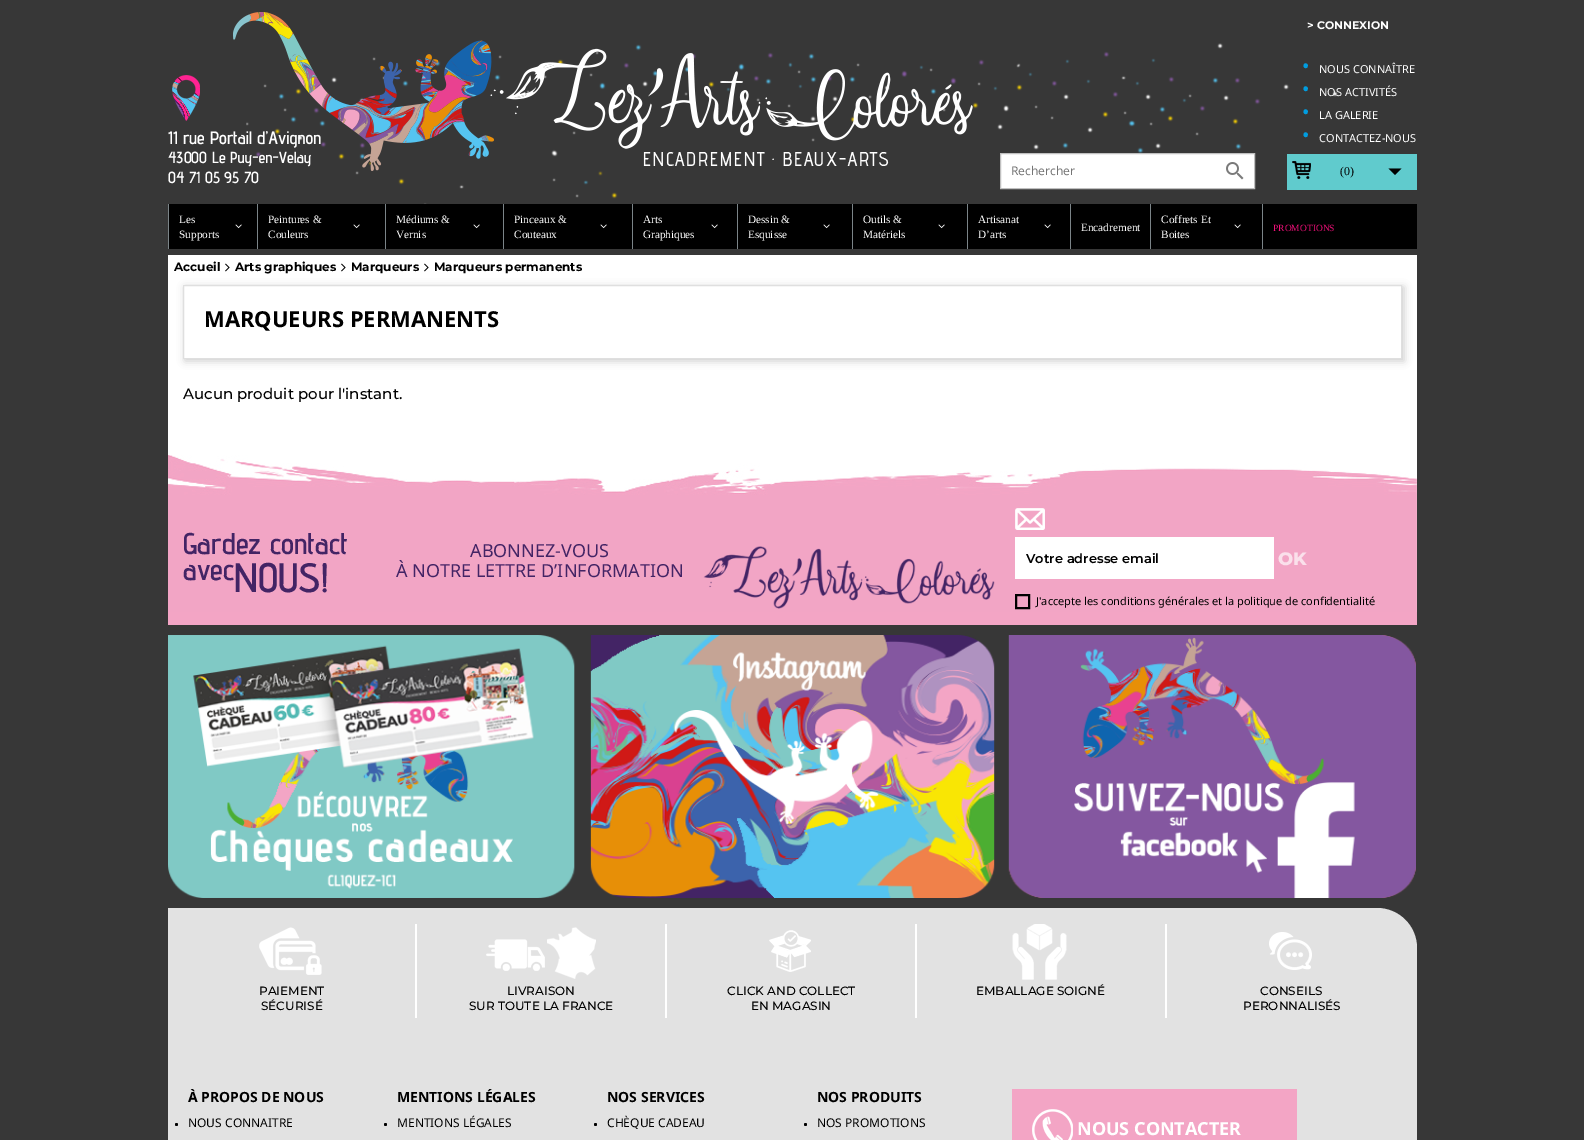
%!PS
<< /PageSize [1584 1140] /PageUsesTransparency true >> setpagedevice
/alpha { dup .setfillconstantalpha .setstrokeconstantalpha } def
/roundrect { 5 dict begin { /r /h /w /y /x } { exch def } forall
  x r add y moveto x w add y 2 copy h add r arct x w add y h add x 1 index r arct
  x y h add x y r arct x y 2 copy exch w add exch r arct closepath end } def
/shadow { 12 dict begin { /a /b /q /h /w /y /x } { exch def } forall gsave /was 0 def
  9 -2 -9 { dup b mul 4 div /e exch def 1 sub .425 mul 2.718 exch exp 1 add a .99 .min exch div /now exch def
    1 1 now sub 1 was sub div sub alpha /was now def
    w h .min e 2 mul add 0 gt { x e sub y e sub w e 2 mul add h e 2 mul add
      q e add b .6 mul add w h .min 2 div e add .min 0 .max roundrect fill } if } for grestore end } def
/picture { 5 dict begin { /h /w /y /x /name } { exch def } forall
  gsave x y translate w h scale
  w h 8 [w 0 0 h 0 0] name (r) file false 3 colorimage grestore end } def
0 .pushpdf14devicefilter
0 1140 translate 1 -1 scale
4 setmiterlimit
0.216 setgray
0 0 1584 1140 rectfill
(img1.rgb) 246 43 1092 161 picture
/Montserrat-Bold [11 0 0 -11 0 0] selectfont
1 setgray
1307 29 moveto (> CONNEXION) show
/AdventPro-SemiBold [18 0 0 -18 0 0] selectfont
168 144 moveto (11 rue Portail d’Avignon) show
/AdventPro-SemiBold [16 0 0 -16 0 0] selectfont
168 163 moveto (43000 Le Puy-en-Velay) show
(img4.rgb) 233 12 261 159 picture
(img2.rgb) 490 48 483 118 picture
/NotoSans-Regular [20 0 0 -20 0 0] selectfont
0 0.616 0.878 setrgbcolor
1302 73 moveto (•) show
/NotoSans-Regular [11 0 0 -11 0 0] selectfont
1 setgray
1319 73 moveto (NOUS CONNAÎTRE) show
/NotoSans-Regular [20 0 0 -20 0 0] selectfont
0 0.616 0.878 setrgbcolor
1302 96 moveto (•) show
/NotoSans-Regular [11 0 0 -11 0 0] selectfont
1 setgray
1319 96 moveto (NOS ACTIVITÉS) show
/NotoSans-Regular [20 0 0 -20 0 0] selectfont
0 0.616 0.878 setrgbcolor
1302 119 moveto (•) show
/NotoSans-Regular [11 0 0 -11 0 0] selectfont
1 setgray
1319 119 moveto (LA GALERIE) show
/NotoSans-Regular [20 0 0 -20 0 0] selectfont
0 0.616 0.878 setrgbcolor
1302 142 moveto (•) show
/NotoSans-Regular [11 0 0 -11 0 0] selectfont
1 setgray
1319 142 moveto (CONTACTEZ-NOUS) show
(img3.rgb) 172 75 28 46 picture
/AdventPro-SemiBold [16 0 0 -16 0 0] selectfont
168 183 moveto (04 71 05 95 70) show
newpath 1000.5 153.5 moveto 1254.5 153.5 lineto 1254.5 188.5 lineto 1000.5 188.5 lineto closepath gsave fill grestore
0.749 setgray
stroke
/NotoSans-Regular [12 0 0 -12 0 0] selectfont
0.459 setgray
1011 175 moveto (Rechercher) show
(img5.rgb) 1226 162 18 18 picture
0.376 0.796 0.804 setrgbcolor
1287 154 130 36 rectfill
(img6.rgb) 1292 161 19 18 picture
/LiberationSerif-Regular [12 0 0 -12 0 0] selectfont
0 setgray
1340 175 moveto (\(0\)) show
newpath 1388.5 168.5 moveto 1401.5 168.5 lineto 1395 175 lineto closepath fill
169 204 1248 45 rectfill
0.482 0.518 0.533 setrgbcolor
168 204 1 45 rectfill
/LiberationSerif-Regular [11.25 0 0 -11.25 0 0] selectfont
1 setgray
179 223 moveto (Les) show
179 238 moveto (Supports) show
(img7.rgb) 235 224 7 5 picture
0.482 0.518 0.533 setrgbcolor
257 204 1 45 rectfill
1 setgray
268 223 moveto (Peintures &) show
268 238 moveto (Couleurs) show
(img7.rgb) 353 224 7 5 picture
0.482 0.518 0.533 setrgbcolor
385 204 1 45 rectfill
1 setgray
396 223 moveto (Médiums &) show
396 238 moveto (Vernis) show
(img7.rgb) 473 224 7 5 picture
0.482 0.518 0.533 setrgbcolor
503 204 1 45 rectfill
1 setgray
514 223 moveto (Pinceaux &) show
514 238 moveto (Couteaux) show
(img7.rgb) 600 224 7 5 picture
0.482 0.518 0.533 setrgbcolor
632 204 1 45 rectfill
1 setgray
643 223 moveto (Arts) show
643 238 moveto (Graphiques) show
(img7.rgb) 711 224 7 5 picture
0.482 0.518 0.533 setrgbcolor
737 204 1 45 rectfill
1 setgray
748 223 moveto (Dessin &) show
748 238 moveto (Esquisse) show
(img7.rgb) 823 224 7 5 picture
0.482 0.518 0.533 setrgbcolor
852 204 1 45 rectfill
1 setgray
863 223 moveto (Outils &) show
863 238 moveto (Matériels) show
(img7.rgb) 938 224 7 5 picture
0.482 0.518 0.533 setrgbcolor
967 204 1 45 rectfill
1 setgray
978 223 moveto (Artisanat) show
978 238 moveto (D’arts) show
(img7.rgb) 1044 224 7 5 picture
0.482 0.518 0.533 setrgbcolor
1070 204 1 45 rectfill
1 setgray
1081 231 moveto (Encadrement) show
0.482 0.518 0.533 setrgbcolor
1150 204 1 45 rectfill
1 setgray
1161 223 moveto (Coffrets Et) show
1161 238 moveto (Boites) show
(img7.rgb) 1234 224 7 5 picture
0.482 0.518 0.533 setrgbcolor
1262 204 1 45 rectfill
/LiberationSerif-Regular [9.5 0 0 -9.5 0 0] selectfont
0.937 0.059 0.471 setrgbcolor
1273 231 moveto (PROMOTIONS) show
1 setgray
168 255 1249 200 rectfill
/Montserrat-Bold [12 0 0 -12 0 0] selectfont
0 setgray
174 271 moveto (Accueil) show
(img8.rgb) 225 263 5 9 picture
235 271 moveto (Arts graphiques) show
(img8.rgb) 341 263 5 9 picture
351 271 moveto (Marqueurs) show
(img8.rgb) 424 263 5 9 picture
434 271 moveto (Marqueurs permanents) show
gsave
newpath 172 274 moveto 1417 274 lineto 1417 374 lineto 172 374 lineto closepath 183 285 moveto 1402 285 lineto 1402 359 lineto 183 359 lineto closepath eoclip newpath
185 287 1219 74 0 4 0.2 shadow
grestore
0.875 setgray
183.5 285.5 1218 73 rectstroke
/NotoSans-Bold [22 0 0 -22 0 0] selectfont
0 setgray
204 327 moveto (MARQUEURS PERMANENTS) show
/Montserrat-Medium [15 0 0 -15 0 0] selectfont
183 399 moveto (Aucun produit pour l'instant.) show
0.953 0.647 0.773 setrgbcolor
168 612 1249 13 rectfill
(img9.rgb) 168 455 1249 157 picture
/AdventPro-SemiBold [30 0 0 -30 0 0] selectfont
0.263 0.141 0.396 setrgbcolor
183 554 moveto (Gardez contact) show
183 580 moveto (avec) show
/AdventPro-SemiBold [41 0 0 -41 0 0] selectfont
234 592 moveto (NOUS!) show
/NotoSans-Regular [18 0 0 -18 0 0] selectfont
470 557 moveto (ABONNEZ-VOUS) show
396 577 moveto (À NOTRE LETTRE D’INFORMATION) show
(img10.rgb) 703 546 292 63 picture
(img11.rgb) 1015 508 30 22 picture
1 setgray
1015 537 259 42 rectfill
/Montserrat-SemiBold [13 0 0 -13 0 0] selectfont
0 setgray
1026 563 moveto (Votre adresse email) show
/Montserrat-ExtraBold [18 0 0 -18 0 0] selectfont
0.98 0.878 0.922 setrgbcolor
1278 565 moveto (OK) show
0 setgray
2 setlinewidth
1016 595 13 13 rectstroke
/NotoSans-Regular [11 0 0 -11 0 0] selectfont
1036 605 moveto (J'accepte les conditions générales et la politique de confidentialité) show
(img12.rgb) 168 635 407 263 picture
(img13.rgb) 590 635 405 263 picture
(img14.rgb) 1008 635 408 263 picture
0.886 setgray
newpath 168 908 moveto 1377 908 lineto 1399 908 1417 926 1417 948 curveto 1417 1034 lineto 168 1034 lineto closepath fill
1 setgray
415 924 2 94 rectfill
(img15.rgb) 259 927 63 48 picture
/Montserrat-Medium [12 0 0 -12 0 0] selectfont
0 setgray
259 995 moveto (PAIEMENT) show
261 1010 moveto (SÉCURISÉ) show
1 setgray
665 924 2 94 rectfill
(img16.rgb) 486 927 110 52 picture
0 setgray
507 995 moveto (LIVRAISON) show
469 1010 moveto (SUR TOUTE LA FRANCE) show
1 setgray
915 924 2 94 rectfill
(img17.rgb) 769 930 42 42 picture
0 setgray
727 995 moveto (CLICK AND COLLECT) show
751 1010 moveto (EN MAGASIN) show
1 setgray
1165 924 2 94 rectfill
(img18.rgb) 1012 924 55 56 picture
0 setgray
976 995 moveto (EMBALLAGE SOIGNÉ) show
(img19.rgb) 1269 932 43 38 picture
1260 995 moveto (CONSEILS) show
1243 1010 moveto (PERONNALISÉS) show
0.886 setgray
168 1034 1249 106 rectfill
/NotoSans-Bold [14 0 0 -14 0 0] selectfont
0 setgray
188 1102 moveto (À PROPOS DE NOUS) show
newpath 176.5 1124.5 1.5 0 360 arc closepath fill
/NotoSans-Regular [12 0 0 -12 0 0] selectfont
188 1127 moveto (NOUS CONNAITRE) show
/NotoSans-Bold [14 0 0 -14 0 0] selectfont
397 1102 moveto (MENTIONS LÉGALES) show
newpath 385.5 1124.5 1.5 0 360 arc closepath fill
/NotoSans-Regular [12 0 0 -12 0 0] selectfont
397 1127 moveto (MENTIONS LÉGALES) show
/NotoSans-Bold [14 0 0 -14 0 0] selectfont
607 1102 moveto (NOS SERVICES) show
newpath 595.5 1124.5 1.5 0 360 arc closepath fill
/NotoSans-Regular [12 0 0 -12 0 0] selectfont
607 1127 moveto (CHÈQUE CADEAU) show
/NotoSans-Bold [14 0 0 -14 0 0] selectfont
817 1102 moveto (NOS PRODUITS) show
newpath 805.5 1124.5 1.5 0 360 arc closepath fill
/NotoSans-Regular [12 0 0 -12 0 0] selectfont
817 1127 moveto (NOS PROMOTIONS) show
0.953 0.647 0.773 setrgbcolor
1012 1089 285 51 rectfill
(img20.rgb) 1032 1109 41 31 picture
/NotoSans-Bold [18 0 0 -18 0 0] selectfont
1 setgray
1077 1135 moveto (NOUS CONTACTER) show
.poppdf14devicefilter showpage
